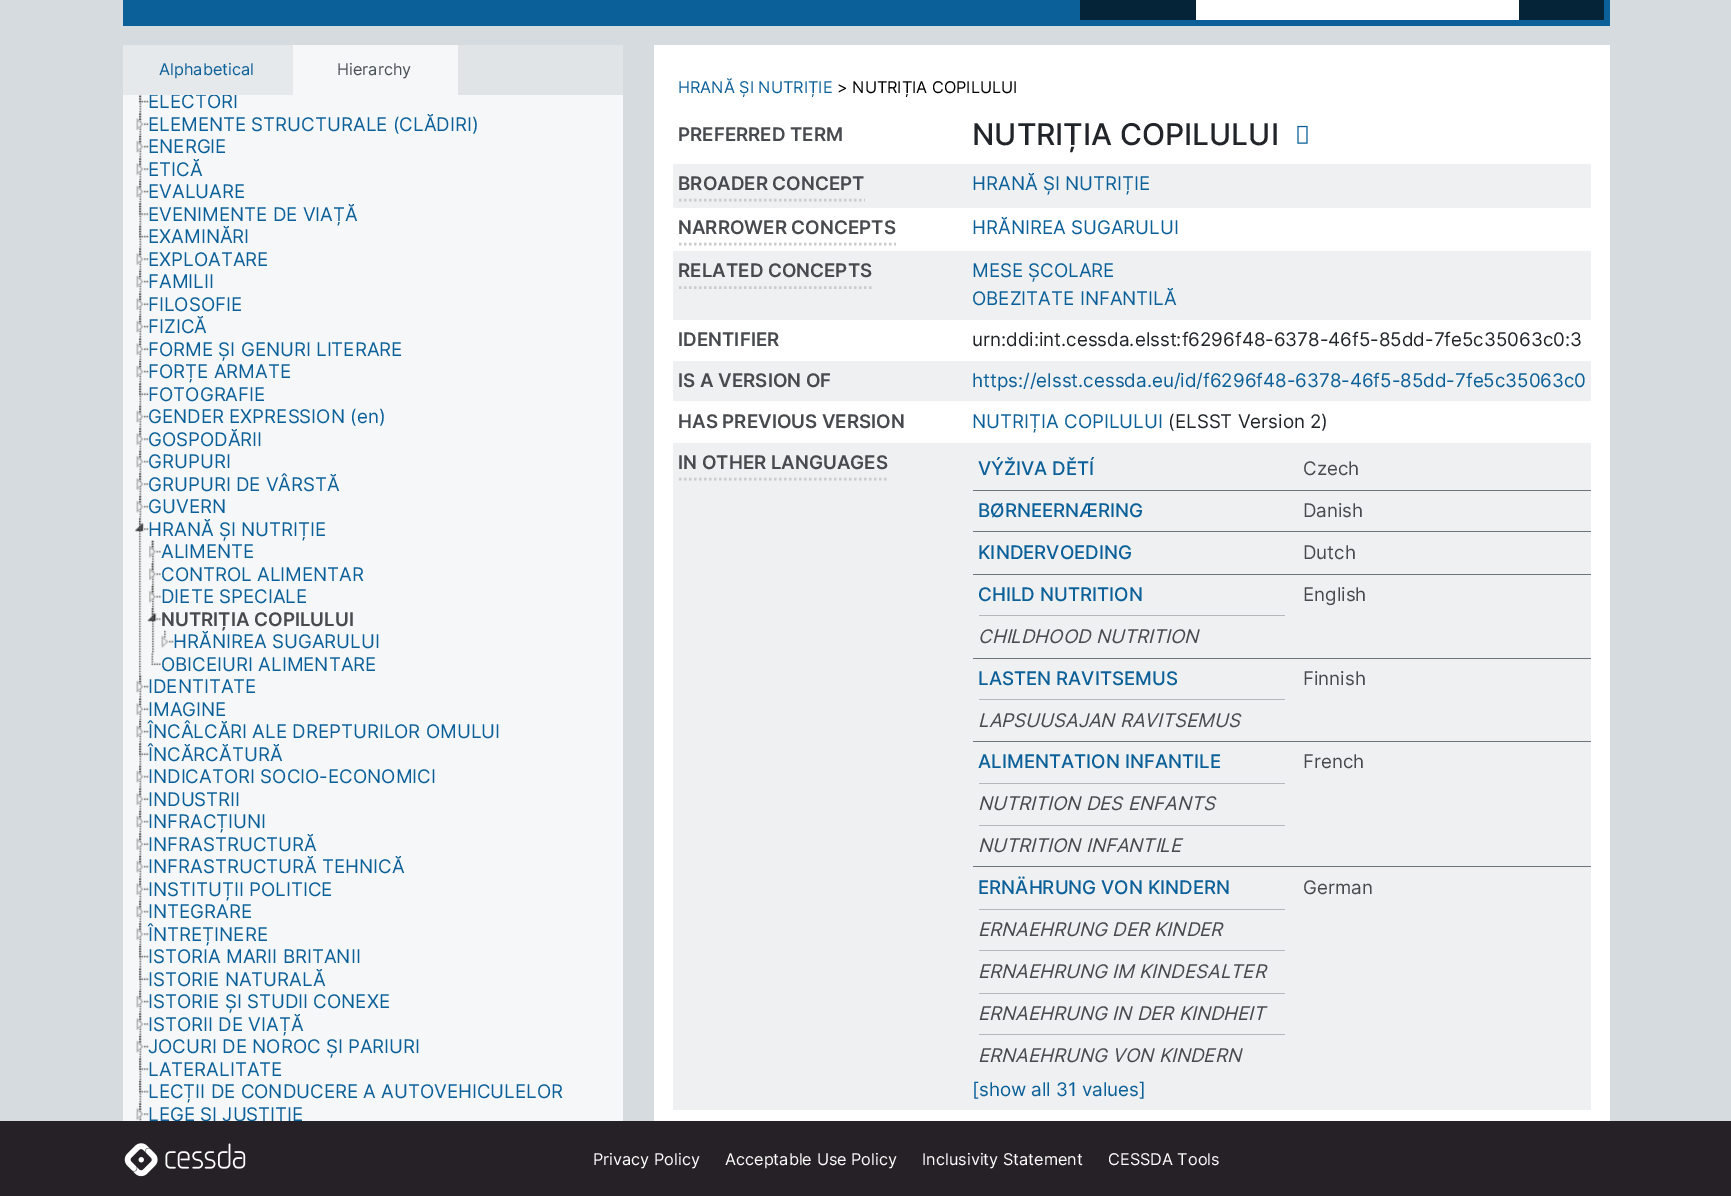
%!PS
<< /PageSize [1731 1196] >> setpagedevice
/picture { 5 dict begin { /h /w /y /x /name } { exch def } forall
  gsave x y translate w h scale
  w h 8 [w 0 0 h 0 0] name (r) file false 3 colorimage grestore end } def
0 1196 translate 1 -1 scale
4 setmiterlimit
0.835 0.859 0.871 setrgbcolor
0 0 1731 1196 rectfill
0.043 0.376 0.6 setrgbcolor
123 0 1487 26 rectfill
0.02 0.141 0.22 setrgbcolor
1080 0 116 20 rectfill
1 setgray
1196 0 323 20 rectfill
0.02 0.141 0.22 setrgbcolor
1519 0 85 20 rectfill
0.878 0.894 0.906 setrgbcolor
458 45 165 50 rectfill
0.902 0.914 0.922 setrgbcolor
123 45 170 50 rectfill
/Inter-Regular [16.25 0 0 -16.25 0 0] selectfont
0.043 0.376 0.6 setrgbcolor
159 75 moveto (Alphabetical) show
0.965 0.969 0.973 setrgbcolor
293 45 165 50 rectfill
0.286 0.314 0.341 setrgbcolor
337 75 moveto (Hierarchy) show
0.965 0.969 0.973 setrgbcolor
123 95 500 1026 rectfill
(img1.rgb) 139 95 3 18 picture
(img2.rgb) 138 95 11 8 picture
gsave
123 95 500 1049 rectclip
/Inter-Regular [18.75 0 0 -18.75 0 0] selectfont
0.043 0.376 0.6 setrgbcolor
148 108 moveto (ELECTORI) show
grestore
(img3.rgb) 139 112 3 24 picture
(img4.rgb) 136 112 13 19 picture
/Inter-Regular [18.75 0 0 -18.75 0 0] selectfont
0.043 0.376 0.6 setrgbcolor
148 131 moveto (ELEMENTE STRUCTURALE \(CLĂDIRI\)) show
(img5.rgb) 139 135 3 23 picture
(img6.rgb) 136 135 13 18 picture
148 153 moveto (ENERGIE) show
(img3.rgb) 139 157 3 24 picture
(img7.rgb) 136 158 13 18 picture
148 176 moveto (ETICĂ) show
(img8.rgb) 139 180 3 23 picture
(img9.rgb) 136 180 13 18 picture
148 198 moveto (EVALUARE) show
(img10.rgb) 139 203 3 23 picture
(img11.rgb) 138 203 11 13 picture
148 221 moveto (EVENIMENTE DE VIAȚĂ) show
(img12.rgb) 139 225 3 23 picture
(img13.rgb) 138 225 11 13 picture
148 243 moveto (EXAMINĂRI) show
(img14.rgb) 139 247 3 24 picture
(img15.rgb) 136 248 13 18 picture
148 266 moveto (EXPLOATARE) show
(img16.rgb) 139 270 3 23 picture
(img17.rgb) 136 270 13 18 picture
148 288 moveto (FAMILII) show
(img18.rgb) 139 292 3 24 picture
(img19.rgb) 136 292 13 19 picture
148 311 moveto (FILOSOFIE) show
(img5.rgb) 139 315 3 23 picture
(img6.rgb) 136 315 13 18 picture
148 333 moveto (FIZICĂ) show
(img3.rgb) 139 337 3 24 picture
(img4.rgb) 136 337 13 19 picture
148 356 moveto (FORME ȘI GENURI LITERARE) show
(img5.rgb) 139 360 3 23 picture
(img6.rgb) 136 360 13 18 picture
148 378 moveto (FORȚE ARMATE) show
(img20.rgb) 139 383 3 23 picture
(img21.rgb) 138 382 11 14 picture
148 401 moveto (FOTOGRAFIE) show
(img12.rgb) 139 405 3 23 picture
(img22.rgb) 136 405 13 18 picture
148 423 moveto (GENDER EXPRESSION \(en\)) show
(img10.rgb) 139 428 3 23 picture
(img23.rgb) 136 428 13 18 picture
148 446 moveto (GOSPODĂRII) show
(img12.rgb) 139 450 3 23 picture
(img24.rgb) 136 450 13 18 picture
148 468 moveto (GRUPURI) show
(img25.rgb) 139 473 3 23 picture
(img26.rgb) 136 473 13 18 picture
148 491 moveto (GRUPURI DE VÂRSTĂ) show
(img27.rgb) 139 495 3 23 picture
(img28.rgb) 136 495 13 18 picture
148 513 moveto (GUVERN) show
(img29.rgb) 138 518 4 158 picture
(img30.rgb) 135 518 14 14 picture
(img31.rgb) 151 540 4 23 picture
148 536 moveto (HRANĂ ȘI NUTRIȚIE) show
(img32.rgb) 149 540 12 18 picture
161 558 moveto (ALIMENTE) show
(img33.rgb) 151 562 4 24 picture
(img34.rgb) 149 563 12 18 picture
161 581 moveto (CONTROL ALIMENTAR) show
(img35.rgb) 151 585 4 23 picture
(img36.rgb) 149 585 12 18 picture
161 603 moveto (DIETE SPECIALE) show
(img37.rgb) 151 608 4 45 picture
(img38.rgb) 147 608 14 14 picture
/Inter-SemiBold [18.75 0 0 -18.75 0 0] selectfont
0.278 0.294 0.31 setrgbcolor
161 626 moveto (NUTRIȚIA COPILULUI) show
(img39.rgb) 161 630 13 18 picture
/Inter-Regular [18.75 0 0 -18.75 0 0] selectfont
0.043 0.376 0.6 setrgbcolor
173 648 moveto (HRĂNIREA SUGARULUI) show
(img40.rgb) 151 652 10 14 picture
161 671 moveto (OBICEIURI ALIMENTARE) show
(img41.rgb) 139 675 3 23 picture
(img42.rgb) 136 675 13 18 picture
148 693 moveto (IDENTITATE) show
(img3.rgb) 139 697 3 24 picture
(img4.rgb) 136 697 13 19 picture
148 716 moveto (IMAGINE) show
(img5.rgb) 139 720 3 23 picture
(img6.rgb) 136 720 13 18 picture
148 738 moveto (ÎNCÂLCĂRI ALE DREPTURILOR OMULUI) show
(img20.rgb) 139 743 3 23 picture
(img21.rgb) 138 742 11 14 picture
148 761 moveto (ÎNCĂRCĂTURĂ) show
(img43.rgb) 139 765 3 23 picture
(img44.rgb) 136 765 13 18 picture
148 783 moveto (INDICATORI SOCIO-ECONOMICI) show
(img20.rgb) 139 788 3 23 picture
(img45.rgb) 136 787 13 19 picture
148 806 moveto (INDUSTRII) show
(img43.rgb) 139 810 3 23 picture
(img44.rgb) 136 810 13 18 picture
148 828 moveto (INFRACȚIUNI) show
(img20.rgb) 139 833 3 23 picture
(img45.rgb) 136 832 13 19 picture
148 851 moveto (INFRASTRUCTURĂ) show
(img43.rgb) 139 855 3 23 picture
(img44.rgb) 136 855 13 18 picture
148 873 moveto (INFRASTRUCTURĂ TEHNICĂ) show
(img20.rgb) 139 878 3 23 picture
(img45.rgb) 136 877 13 19 picture
148 896 moveto (INSTITUȚII POLITICE) show
(img43.rgb) 139 900 3 23 picture
(img44.rgb) 136 900 13 18 picture
148 918 moveto (INTEGRARE) show
(img3.rgb) 139 922 3 24 picture
(img7.rgb) 136 923 13 18 picture
148 941 moveto (ÎNTREȚINERE) show
(img5.rgb) 139 945 3 23 picture
(img46.rgb) 138 945 11 13 picture
148 963 moveto (ISTORIA MARII BRITANII) show
(img3.rgb) 139 967 3 24 picture
(img47.rgb) 138 967 11 14 picture
148 986 moveto (ISTORIE NATURALĂ) show
(img5.rgb) 139 990 3 23 picture
(img48.rgb) 136 990 13 18 picture
148 1008 moveto (ISTORIE ȘI STUDII CONEXE) show
(img49.rgb) 139 1012 3 24 picture
(img50.rgb) 136 1013 13 18 picture
148 1031 moveto (ISTORII DE VIAȚĂ) show
(img8.rgb) 139 1035 3 23 picture
(img9.rgb) 136 1035 13 18 picture
148 1053 moveto (JOCURI DE NOROC ȘI PARIURI) show
(img51.rgb) 139 1057 3 24 picture
(img52.rgb) 138 1058 11 13 picture
148 1076 moveto (LATERALITATE) show
(img5.rgb) 139 1080 3 23 picture
(img53.rgb) 138 1080 11 13 picture
148 1098 moveto (LECȚII DE CONDUCERE A AUTOVEHICULELOR) show
(img54.rgb) 139 1102 3 19 picture
(img7.rgb) 136 1103 13 18 picture
148 1121 moveto (LEGE ȘI JUSTIȚIE) show
1 setgray
654 45 956 1076 rectfill
/Inter-Regular [16.25 0 0 -16.25 0 0] selectfont
0.043 0.376 0.6 setrgbcolor
678 93 moveto (HRANĂ ȘI NUTRIȚIE) show
0 setgray
837 93 moveto (> NUTRIȚIA COPILULUI) show
/Inter-SemiBold [18.75 0 0 -18.75 0 0] selectfont
0.278 0.294 0.31 setrgbcolor
678 141 moveto (PREFERRED TERM) show
/Inter-Medium [30 0 0 -30 0 0] selectfont
0.129 0.145 0.161 setrgbcolor
972 145 moveto (NUTRIȚIA COPILULUI) show
(img55.rgb) 1297 125 11 19 picture
0.937 0.941 0.945 setrgbcolor
673 164 918 44 rectfill
0.8 setgray
2.5 setlinewidth
[2.5 2.5] 0 setdash
newpath 679 200 moveto 865 200 lineto stroke
/Inter-SemiBold [18.75 0 0 -18.75 0 0] selectfont
0.278 0.294 0.31 setrgbcolor
678 190 moveto (BROADER CONCEPT) show
/Inter-Regular [18.75 0 0 -18.75 0 0] selectfont
0.043 0.376 0.6 setrgbcolor
972 190 moveto (HRANĂ ȘI NUTRIȚIE) show
0.8 setgray
newpath 679 244 moveto 896 244 lineto stroke
/Inter-SemiBold [18.75 0 0 -18.75 0 0] selectfont
0.278 0.294 0.31 setrgbcolor
678 234 moveto (NARROWER CONCEPTS) show
/Inter-Regular [18.75 0 0 -18.75 0 0] selectfont
0.043 0.376 0.6 setrgbcolor
972 234 moveto (HRĂNIREA SUGARULUI) show
0.937 0.941 0.945 setrgbcolor
673 251 918 69 rectfill
0.8 setgray
newpath 679 287.5 moveto 872.5 287.5 lineto stroke
/Inter-SemiBold [18.75 0 0 -18.75 0 0] selectfont
0.278 0.294 0.31 setrgbcolor
678 277 moveto (RELATED CONCEPTS) show
/Inter-Regular [18.75 0 0 -18.75 0 0] selectfont
0.043 0.376 0.6 setrgbcolor
972 277 moveto (MESE ȘCOLARE) show
972 305 moveto (OBEZITATE INFANTILĂ) show
/Inter-SemiBold [18.75 0 0 -18.75 0 0] selectfont
0.278 0.294 0.31 setrgbcolor
678 346 moveto (IDENTIFIER) show
/Inter-Regular [18.75 0 0 -18.75 0 0] selectfont
0.129 0.145 0.161 setrgbcolor
972 346 moveto (urn:ddi:int.cessda.elsst:f6296f48-6378-46f5-85dd-7fe5c35063c0:3) show
0.937 0.941 0.945 setrgbcolor
673 361 918 40 rectfill
/Inter-SemiBold [18.75 0 0 -18.75 0 0] selectfont
0.278 0.294 0.31 setrgbcolor
678 387 moveto (IS A VERSION OF) show
/Inter-Regular [18.75 0 0 -18.75 0 0] selectfont
0.043 0.376 0.6 setrgbcolor
972 387 moveto (https://elsst.cessda.eu/id/f6296f48-6378-46f5-85dd-7fe5c35063c0) show
/Inter-SemiBold [18.75 0 0 -18.75 0 0] selectfont
0.278 0.294 0.31 setrgbcolor
678 428 moveto (HAS PREVIOUS VERSION) show
/Inter-Regular [18.75 0 0 -18.75 0 0] selectfont
0.043 0.376 0.6 setrgbcolor
972 428 moveto (NUTRIȚIA COPILULUI) show
0.129 0.145 0.161 setrgbcolor
1168 428 moveto (\(ELSST Version 2\)) show
0.937 0.941 0.945 setrgbcolor
673 443 918 667 rectfill
0.8 setgray
newpath 679 479 moveto 889 479 lineto stroke
/Inter-SemiBold [18.75 0 0 -18.75 0 0] selectfont
0.278 0.294 0.31 setrgbcolor
678 469 moveto (IN OTHER LANGUAGES) show
/Inter-Medium [18.75 0 0 -18.75 0 0] selectfont
0.043 0.376 0.6 setrgbcolor
978 475 moveto (VÝŽIVA DĚTÍ) show
/Inter-Regular [18.75 0 0 -18.75 0 0] selectfont
0.278 0.294 0.31 setrgbcolor
1303 475 moveto (Czech) show
0.424 0.459 0.49 setrgbcolor
973 490 618 1 rectfill
/Inter-Medium [18.75 0 0 -18.75 0 0] selectfont
0.043 0.376 0.6 setrgbcolor
978 517 moveto (BØRNEERNÆRING) show
/Inter-Regular [18.75 0 0 -18.75 0 0] selectfont
0.278 0.294 0.31 setrgbcolor
1303 517 moveto (Danish) show
0.424 0.459 0.49 setrgbcolor
973 531 618 1 rectfill
/Inter-Medium [18.75 0 0 -18.75 0 0] selectfont
0.043 0.376 0.6 setrgbcolor
978 559 moveto (KINDERVOEDING) show
/Inter-Regular [18.75 0 0 -18.75 0 0] selectfont
0.278 0.294 0.31 setrgbcolor
1303 559 moveto (Dutch) show
0.424 0.459 0.49 setrgbcolor
973 574 618 1 rectfill
/Inter-Medium [18.75 0 0 -18.75 0 0] selectfont
0.043 0.376 0.6 setrgbcolor
978 601 moveto (CHILD NUTRITION) show
/Inter-Regular [18.75 0 0 -18.75 0 0] selectfont
0.278 0.294 0.31 setrgbcolor
1303 601 moveto (English) show
0.702 0.722 0.741 setrgbcolor
979 615 306 1 rectfill
/Inter-Italic [18.75 0 0 -18.75 0 0] selectfont
0.278 0.294 0.31 setrgbcolor
978 643 moveto (CHILDHOOD NUTRITION) show
0.424 0.459 0.49 setrgbcolor
973 658 618 1 rectfill
/Inter-Medium [18.75 0 0 -18.75 0 0] selectfont
0.043 0.376 0.6 setrgbcolor
978 685 moveto (LASTEN RAVITSEMUS) show
/Inter-Regular [18.75 0 0 -18.75 0 0] selectfont
0.278 0.294 0.31 setrgbcolor
1303 685 moveto (Finnish) show
0.702 0.722 0.741 setrgbcolor
979 699 306 1 rectfill
/Inter-Italic [18.75 0 0 -18.75 0 0] selectfont
0.278 0.294 0.31 setrgbcolor
978 727 moveto (LAPSUUSAJAN RAVITSEMUS) show
0.424 0.459 0.49 setrgbcolor
973 741 618 1 rectfill
/Inter-Medium [18.75 0 0 -18.75 0 0] selectfont
0.043 0.376 0.6 setrgbcolor
978 768 moveto (ALIMENTATION INFANTILE) show
/Inter-Regular [18.75 0 0 -18.75 0 0] selectfont
0.278 0.294 0.31 setrgbcolor
1303 768 moveto (French) show
0.702 0.722 0.741 setrgbcolor
979 783 306 1 rectfill
/Inter-Italic [18.75 0 0 -18.75 0 0] selectfont
0.278 0.294 0.31 setrgbcolor
978 810 moveto (NUTRITION DES ENFANTS) show
0.702 0.722 0.741 setrgbcolor
979 825 306 1 rectfill
0.278 0.294 0.31 setrgbcolor
978 852 moveto (NUTRITION INFANTILE) show
0.424 0.459 0.49 setrgbcolor
973 866 618 1 rectfill
/Inter-Medium [18.75 0 0 -18.75 0 0] selectfont
0.043 0.376 0.6 setrgbcolor
978 894 moveto (ERNÄHRUNG VON KINDERN) show
/Inter-Regular [18.75 0 0 -18.75 0 0] selectfont
0.278 0.294 0.31 setrgbcolor
1303 894 moveto (German) show
0.702 0.722 0.741 setrgbcolor
979 909 306 1 rectfill
/Inter-Italic [18.75 0 0 -18.75 0 0] selectfont
0.278 0.294 0.31 setrgbcolor
978 936 moveto (ERNAEHRUNG DER KINDER) show
0.702 0.722 0.741 setrgbcolor
979 950 306 1 rectfill
0.278 0.294 0.31 setrgbcolor
978 978 moveto (ERNAEHRUNG IM KINDESALTER) show
0.702 0.722 0.741 setrgbcolor
979 993 306 1 rectfill
0.278 0.294 0.31 setrgbcolor
978 1020 moveto (ERNAEHRUNG IN DER KINDHEIT) show
0.702 0.722 0.741 setrgbcolor
979 1034 306 1 rectfill
0.278 0.294 0.31 setrgbcolor
978 1062 moveto (ERNAEHRUNG VON KINDERN) show
/Inter-Regular [18.75 0 0 -18.75 0 0] selectfont
0.043 0.376 0.6 setrgbcolor
972 1096 moveto ([show all 31 values]) show
0.149 0.129 0.149 setrgbcolor
0 1121 1731 75 rectfill
(img56.rgb) 124 1143 122 34 picture
/Inter-Regular [16.25 0 0 -16.25 0 0] selectfont
1 setgray
593 1165 moveto (Privacy Policy) show
725 1165 moveto (Acceptable Use Policy) show
922 1165 moveto (Inclusivity Statement) show
1108 1165 moveto (CESSDA Tools) show
showpage
